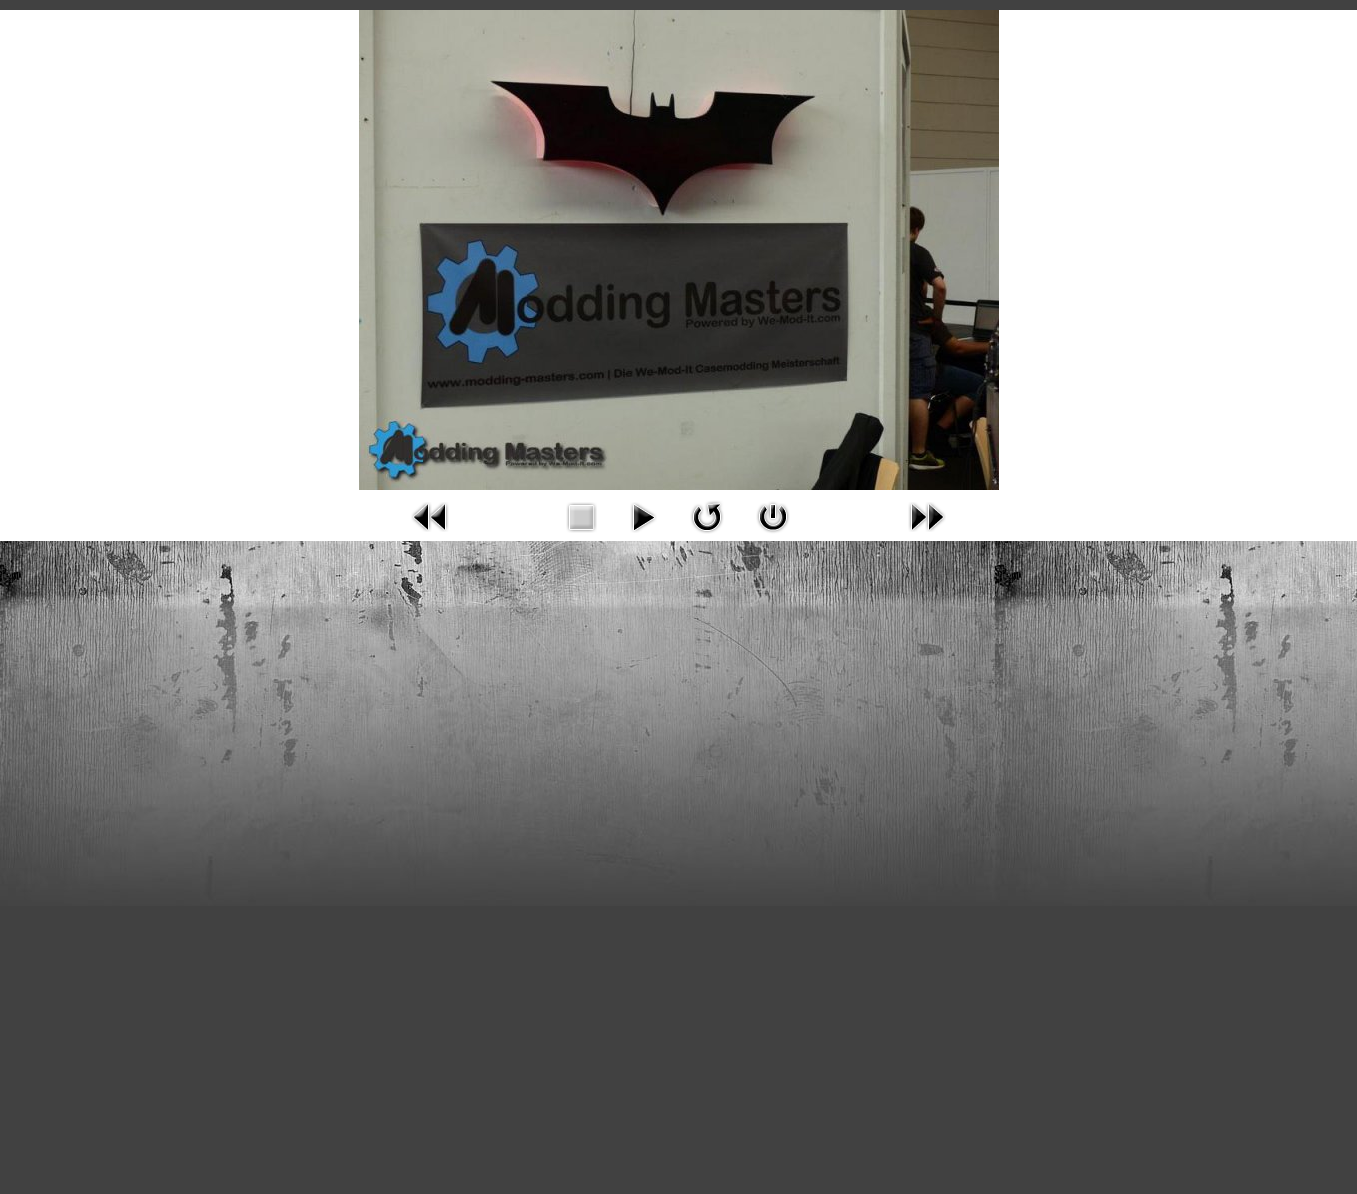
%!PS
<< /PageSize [1357 1194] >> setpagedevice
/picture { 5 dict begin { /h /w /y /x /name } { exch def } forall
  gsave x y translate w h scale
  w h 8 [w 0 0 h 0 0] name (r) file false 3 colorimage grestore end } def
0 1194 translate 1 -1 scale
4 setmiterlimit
0.255 setgray
0 0 1357 1194 rectfill
(img1.rgb) 0 541 1357 365 picture
1 setgray
0 10 1357 531 rectfill
(img2.rgb) 359 10 640 480 picture
(img3.rgb) 411 502 38 30 picture
(img4.rgb) 566 502 31 31 picture
(img5.rgb) 630 502 27 31 picture
(img6.rgb) 690 500 34 34 picture
(img7.rgb) 756 501 34 33 picture
(img8.rgb) 908 502 38 30 picture
showpage
